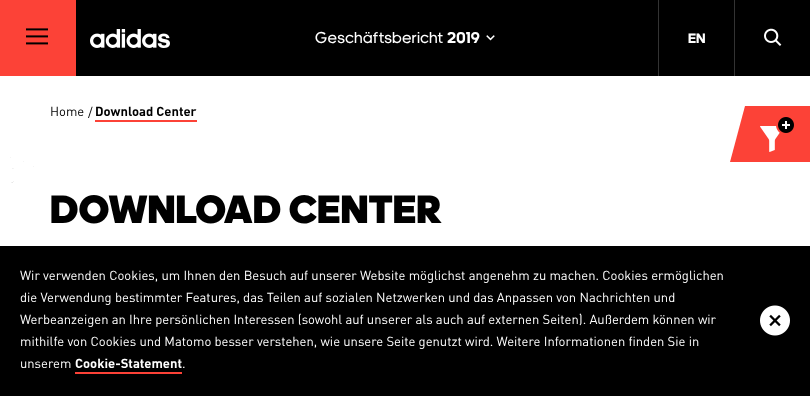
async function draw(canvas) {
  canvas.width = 810
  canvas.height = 396
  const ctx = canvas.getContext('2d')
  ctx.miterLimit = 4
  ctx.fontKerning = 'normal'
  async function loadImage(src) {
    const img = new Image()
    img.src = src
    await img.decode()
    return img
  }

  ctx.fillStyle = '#fff'
  ctx.fillRect(0, 0, 810, 396)
  ctx.fillStyle = '#000'
  ctx.fillRect(76, 0, 734, 76)
  ctx.letterSpacing = '0.5px'
  ctx.font = '16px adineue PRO'
  ctx.fillStyle = '#fff'
  ctx.fillText('Geschäftsbericht', 315, 43)
  ctx.font = 'bold 16px adineue PRO'
  ctx.fillText('2019', 447, 43)
  ctx.drawImage(await loadImage('image0.png'), 486, 35, 9, 6)
  ctx.fillStyle = '#fc4237'
  ctx.fillRect(0, 0, 76, 76)
  ctx.drawImage(await loadImage('image1.png'), 26, 28, 22, 17)
  ctx.drawImage(await loadImage('image2.png'), 90, 29, 80, 19)
  ctx.fillStyle = '#333'
  ctx.fillRect(658, 0, 1, 76)
  ctx.letterSpacing = '0px'
  ctx.font = 'bold 14px adineue PRO'
  ctx.fillStyle = '#fff'
  ctx.fillText('EN', 688, 43)
  ctx.fillStyle = '#333'
  ctx.fillRect(734, 0, 1, 76)
  ctx.drawImage(await loadImage('image3.png'), 764, 28, 18, 18)
  ctx.font = '13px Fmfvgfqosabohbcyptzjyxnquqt'
  ctx.fillStyle = '#000'
  ctx.fillText('Home', 50, 116)
  ctx.fillText('/', 88, 117)
  ctx.fillStyle = '#fc4237'
  ctx.fillRect(95, 120, 102, 2)
  ctx.font = 'bold 13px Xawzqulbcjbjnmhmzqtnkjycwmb'
  ctx.fillStyle = '#000'
  ctx.fillText('Download Center', 95, 116)
  ctx.font = '900 40px adineue PRO'
  ctx.fillText('DOWNLOAD CENTER', 50, 223)
  ctx.fillStyle = '#fc4237'
  ctx.fillRect(745, 106, 65, 56)
  ctx.beginPath()
  ctx.moveTo(745, 162)
  ctx.lineTo(730, 162)
  ctx.lineTo(745, 106)
  ctx.closePath()
  ctx.fill()
  ctx.drawImage(await loadImage('image4.png'), 760, 117, 34, 35)
  ctx.drawImage(await loadImage('image5.png'), 10, 157, 24, 26)
  ctx.fillStyle = '#000'
  ctx.fillRect(0, 246, 810, 150)
  ctx.font = '13px Fmfvgfqosabohbcyptzjyxnquqt'
  ctx.fillStyle = '#fff'
  ctx.fillText('Wir verwenden Cookies, um Ihnen den Besuch auf unserer Website möglichst angenehm zu machen. Cookies ermöglichen', 20, 280)
  ctx.fillText('die Verwendung bestimmter Features, das Teilen auf sozialen Netzwerken und das Anpassen von Nachrichten und', 20, 302)
  ctx.fillText('Werbeanzeigen an Ihre persönlichen Interessen (sowohl auf unserer als auch auf externen Seiten). Außerdem können wir', 20, 324)
  ctx.fillText('mithilfe von Cookies und Matomo besser verstehen, wie unsere Seite genutzt wird. Weitere Informationen finden Sie in', 20, 346)
  ctx.fillText('unserem', 20, 368)
  ctx.font = 'bold 13px Xawzqulbcjbjnmhmzqtnkjycwmb'
  ctx.fillText('Cookie-Statement', 75, 368)
  ctx.fillStyle = '#fc4237'
  ctx.fillRect(75, 372, 107, 2)
  ctx.font = '13px Fmfvgfqosabohbcyptzjyxnquqt'
  ctx.fillStyle = '#fff'
  ctx.fillText('.', 182, 368)
  ctx.drawImage(await loadImage('image6.png'), 760, 305, 30, 31)
}

draw(document.querySelector('canvas'))
